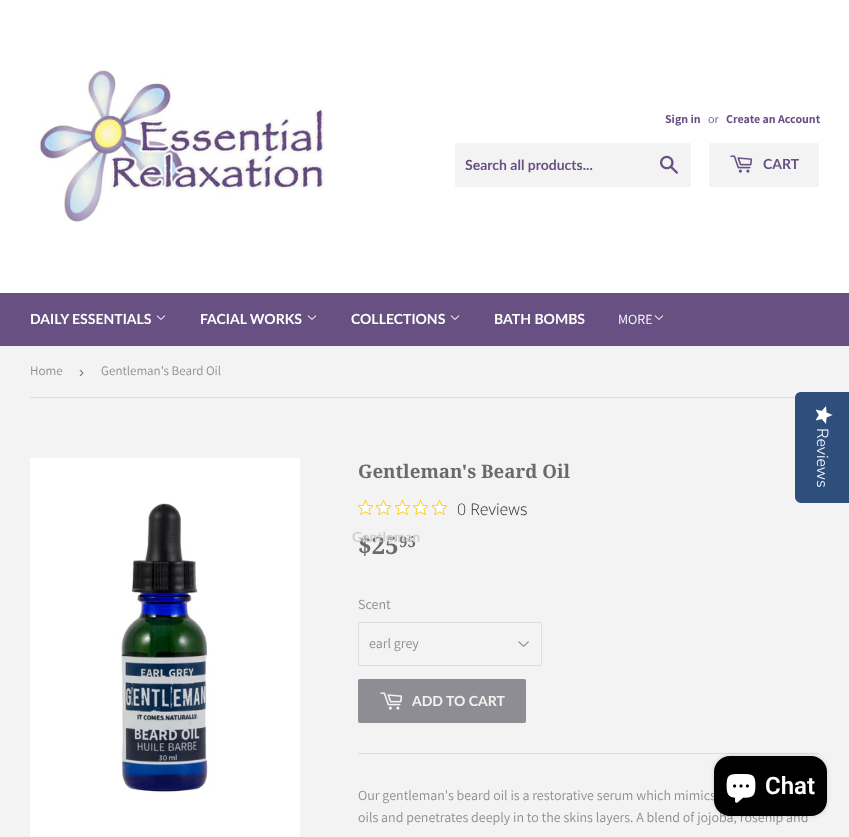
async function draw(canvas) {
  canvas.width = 849
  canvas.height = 837
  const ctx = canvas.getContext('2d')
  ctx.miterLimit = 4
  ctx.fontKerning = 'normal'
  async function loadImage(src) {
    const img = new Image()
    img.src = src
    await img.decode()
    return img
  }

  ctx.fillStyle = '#f3f3f3'
  ctx.fillRect(0, 0, 849, 837)
  ctx.fillStyle = '#fff'
  ctx.fillRect(0, 0, 849, 293)
  ctx.drawImage(await loadImage('image0.png'), 37, 67, 288, 156)
  ctx.font = 'bold 12px Assistant'
  ctx.fillStyle = '#685083'
  ctx.fillText('Sign in', 665, 123)
  ctx.font = '12px Assistant'
  ctx.fillText('or', 708, 123)
  ctx.font = 'bold 12px Assistant'
  ctx.fillText('Create an Account', 726, 123)
  ctx.fillStyle = '#f3f3f3'
  ctx.beginPath()
  ctx.roundRect(455, 143, 236, 44, 2)
  ctx.fill()
  ctx.font = 'bold 14px Lato'
  ctx.fillStyle = '#685083'
  ctx.fillText('Search all products...', 465, 170)
  ctx.drawImage(await loadImage('image1.png'), 660, 155, 18, 19)
  ctx.fillStyle = '#f3f3f3'
  ctx.beginPath()
  ctx.roundRect(709, 143, 110, 44, 2)
  ctx.fill()
  ctx.drawImage(await loadImage('image2.png'), 730, 155, 23, 18)
  ctx.fillStyle = '#685083'
  ctx.fillText('CART', 763, 169)
  ctx.fillRect(0, 293, 849, 53)
  ctx.fillStyle = '#fff'
  ctx.fillText('DAILY ESSENTIALS', 30, 324)
  ctx.drawImage(await loadImage('image3.png'), 156, 315, 10, 5)
  ctx.fillText('FACIAL WORKS', 200, 324)
  ctx.drawImage(await loadImage('image3.png'), 307, 315, 10, 5)
  ctx.fillText('COLLECTIONS', 351, 324)
  ctx.drawImage(await loadImage('image3.png'), 450, 315, 10, 5)
  ctx.font = 'bold 24px Noto Serif'
  ctx.fillStyle = '#686b6d'
  ctx.fillText('$25', 358, 554)
  ctx.font = 'bold 15px Noto Serif'
  ctx.fillText('95', 399, 547)
  ctx.font = 'bold 14px Lato'
  ctx.fillStyle = '#cfd0d0'
  ctx.fillText('Gentleman', 352, 542)
  ctx.fillStyle = '#fff'
  ctx.fillText('BATH BOMBS', 494, 324)
  ctx.font = '14px Assistant'
  ctx.fillText('MORE', 618, 324)
  ctx.drawImage(await loadImage('image3.png'), 654, 315, 10, 5)
  ctx.fillStyle = '#dedede'
  ctx.fillRect(30, 397, 766, 1)
  ctx.font = '13px Assistant'
  ctx.fillStyle = '#8e8d93'
  ctx.fillText('Home', 30, 375)
  ctx.font = '15px Liberation Sans'
  ctx.fillStyle = '#767676'
  ctx.fillText('›', 79, 377)
  ctx.font = '13px Assistant'
  ctx.fillStyle = '#8e8d93'
  ctx.fillText('Gentleman\'s Beard Oil', 101, 375)
  ctx.drawImage(await loadImage('image4.png'), 30, 458, 270, 379)
  ctx.font = 'bold 18.7px Noto Serif'
  ctx.fillStyle = '#686b6d'
  ctx.fillText('Gentleman\'s Beard Oil', 358, 478)
  ctx.drawImage(await loadImage('image5.png'), 358, 500, 15, 15)
  ctx.drawImage(await loadImage('image5.png'), 376, 500, 15, 15)
  ctx.drawImage(await loadImage('image5.png'), 395, 500, 15, 15)
  ctx.drawImage(await loadImage('image5.png'), 413, 500, 15, 15)
  ctx.drawImage(await loadImage('image5.png'), 432, 500, 15, 15)
  ctx.font = '300 16px Open Sans'
  ctx.fillStyle = '#2c2c2c'
  ctx.fillText('0 Reviews', 457, 515)
  ctx.font = '14px Assistant'
  ctx.fillStyle = '#8e8d93'
  ctx.fillText('Scent', 358, 609)
  ctx.drawImage(await loadImage('image6.png'), 518, 641, 11, 6)
  ctx.beginPath()
  ctx.roundRect(358.5, 622.5, 183, 43, 1.5)
  ctx.strokeStyle = '#dedede'
  ctx.stroke()
  ctx.fillText('earl grey', 369, 648)
  ctx.beginPath()
  ctx.roundRect(358, 679, 168, 44, 2)
  ctx.fill()
  ctx.drawImage(await loadImage('image7.png'), 380, 692, 23, 18)
  ctx.font = 'bold 14px Lato'
  ctx.fillStyle = '#f3f3f3'
  ctx.fillText('ADD TO CART', 412, 706)
  ctx.fillStyle = '#dedede'
  ctx.fillRect(358, 753, 461, 1)
  ctx.font = '14px Assistant'
  ctx.fillStyle = '#8e8d93'
  ctx.fillText('Our gentleman\'s beard oil is a restorative serum which mimics', 358, 800)
  ctx.fillText('oils and penetrates deeply in to the skins layers. A blend of jojoba, rosehip and', 358, 822)
  ctx.fillStyle = '#2e4f7c'
  ctx.beginPath()
  ctx.moveTo(849, 392)
  ctx.lineTo(849, 503)
  ctx.lineTo(801, 503)
  ctx.bezierCurveTo(798, 503, 795, 500, 795, 497)
  ctx.lineTo(795, 398)
  ctx.bezierCurveTo(795, 394, 798, 392, 801, 392)
  ctx.closePath()
  ctx.fill()
  ctx.drawImage(await loadImage('image8.png'), 815, 406, 18, 18)
  ctx.font = '300 16px Nunito Sans'
  ctx.fillStyle = '#fff'
  ctx.save()
  ctx.translate(817, 428)
  ctx.rotate(90 * Math.PI / 180)
  ctx.fillText('Reviews', 0, 0)
  ctx.restore()
  ctx.fillStyle = '#00000026'
  ctx.filter = 'blur(2.5px)'
  ctx.beginPath()
  ctx.roundRect(714, 756, 113, 60, 16)
  ctx.fill()
  ctx.filter = 'none'
  ctx.fillStyle = '#000'
  ctx.beginPath()
  ctx.roundRect(714, 756, 113, 60, 16)
  ctx.fill()
  ctx.drawImage(await loadImage('image9.png'), 726, 774, 30, 29)
  ctx.font = '600 24px Roboto'
  ctx.fillStyle = '#fff'
  ctx.fillText('Chat', 765, 794)
}

draw(document.querySelector('canvas'))
